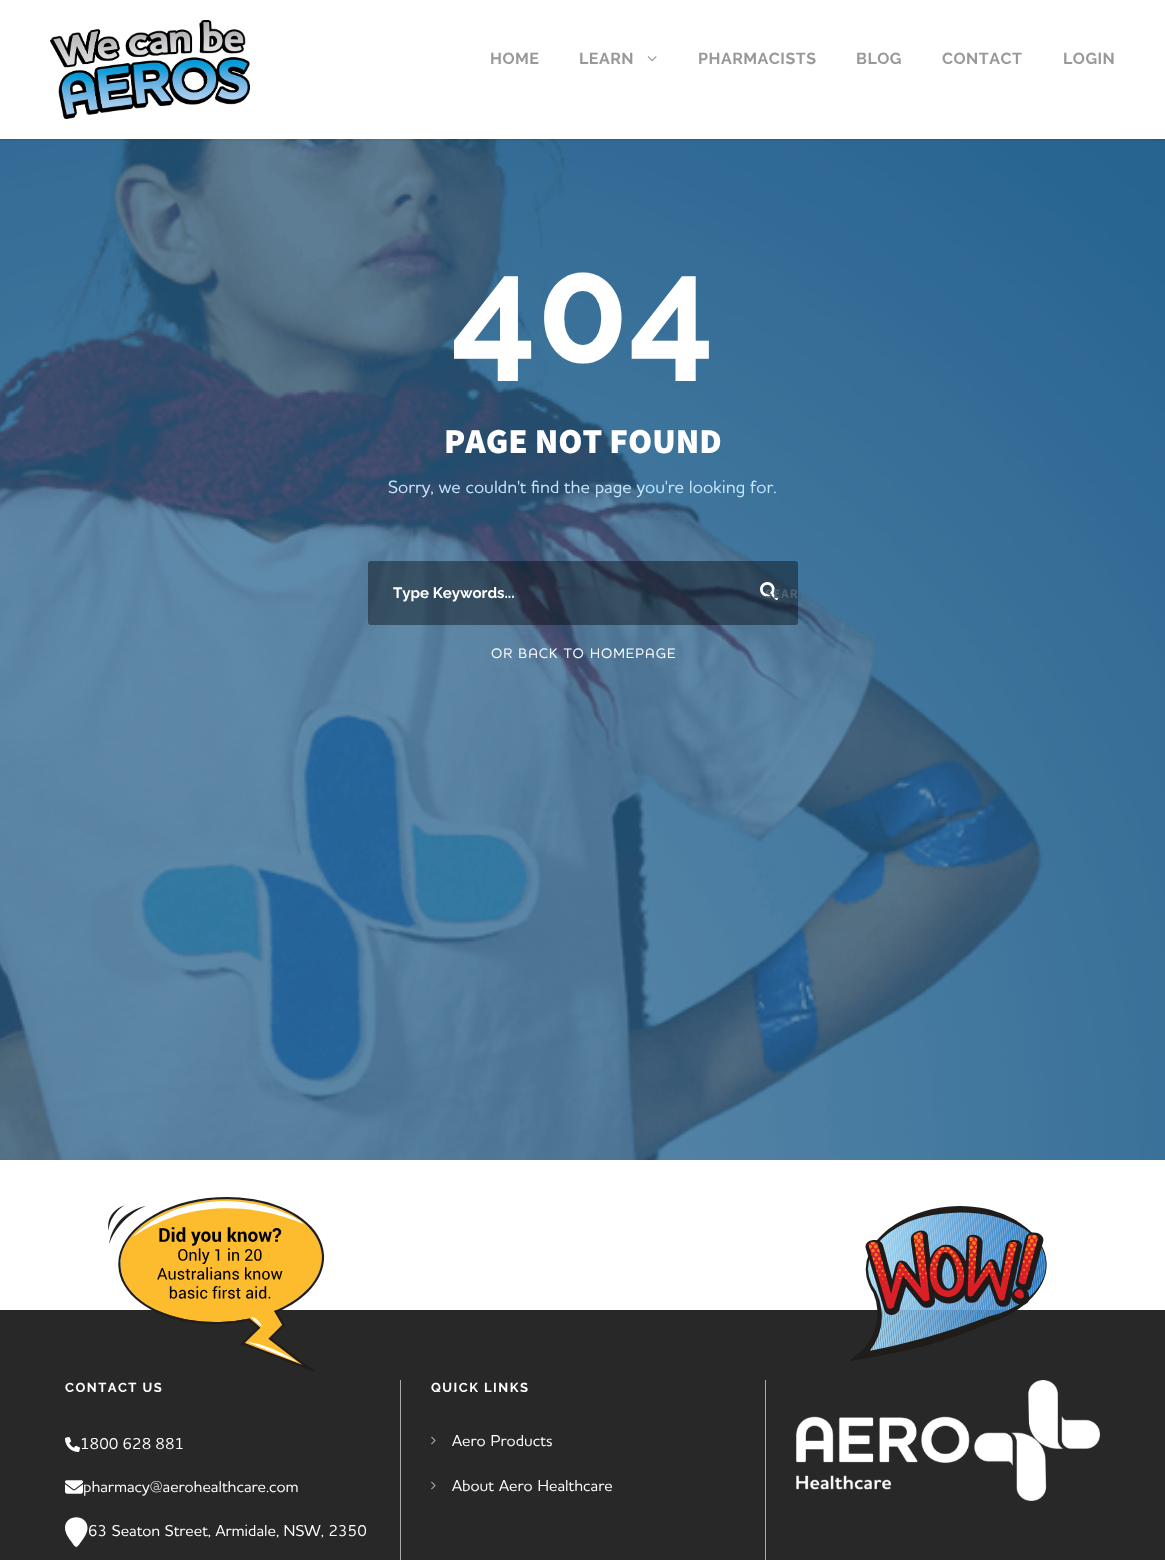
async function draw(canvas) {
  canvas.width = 1165
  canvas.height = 1560
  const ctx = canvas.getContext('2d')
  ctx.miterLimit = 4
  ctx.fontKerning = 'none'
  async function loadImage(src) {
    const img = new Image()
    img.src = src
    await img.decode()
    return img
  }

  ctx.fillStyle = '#fff'
  ctx.fillRect(0, 0, 1165, 1560)
  ctx.fillStyle = '#23618e'
  ctx.fillRect(0, 139, 1165, 1021)
  ctx.drawImage(await loadImage('image2.png'), 0, 139, 1165, 1021)
  ctx.fillStyle = '#0000001a'
  ctx.filter = 'blur(1px)'
  ctx.beginPath()
  ctx.rect(0, 1, 1165, 139)
  ctx.fill()
  ctx.filter = 'none'
  ctx.fillStyle = '#fff'
  ctx.fillRect(0, 0, 1165, 139)
  ctx.drawImage(await loadImage('image0.png'), 50, 20, 200, 99)
  ctx.letterSpacing = '0.5px'
  ctx.font = 'bold 16px Raleway'
  ctx.fillStyle = '#999'
  ctx.fillText('HOME', 490, 64)
  ctx.fillText('LEARN', 579, 64)
  ctx.drawImage(await loadImage('image1.png'), 647, 56, 10, 6)
  ctx.fillText('PHARMACISTS', 698, 64)
  ctx.fillText('BLOG', 856, 64)
  ctx.fillText('CONTACT', 942, 64)
  ctx.fillText('LOGIN', 1063, 64)
  ctx.letterSpacing = '0px'
  ctx.font = 'bold 150px Raleway'
  ctx.fillStyle = '#fff'
  ctx.fillText('404', 451, 362)
  ctx.font = '900 35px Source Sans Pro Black'
  ctx.fillText('PAGE NOT FOUND', 444, 453)
  ctx.wordSpacing = '0.25px'
  ctx.font = '500 18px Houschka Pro'
  ctx.fillStyle = '#c3e7ff'
  ctx.fillText('Sorry, we couldn\'t find the page you\'re looking for.', 388, 493)
  ctx.fillStyle = '#00000066'
  ctx.beginPath()
  ctx.roundRect(368, 561, 430, 64, 3)
  ctx.fill()
  ctx.wordSpacing = '0px'
  ctx.font = 'bold 15px Raleway'
  ctx.fillStyle = '#fff'
  ctx.fillText('Type Keywords...', 393, 598)
  ctx.drawImage(await loadImage('image3.png'), 760, 582, 18, 18)
  ctx.letterSpacing = '1px'
  ctx.font = 'bold 13px Source Sans Pro'
  ctx.fillStyle = '#4d6272'
  ctx.fillText('SEAR', 765, 598)
  ctx.wordSpacing = '0.5px'
  ctx.font = '500 14px Houschka Pro'
  ctx.fillStyle = '#fff'
  ctx.fillText('OR BACK TO HOMEPAGE', 491, 658)
  ctx.fillStyle = '#282828'
  ctx.fillRect(0, 1310, 1165, 250)
  ctx.drawImage(await loadImage('image4.png'), 108, 1197, 217, 175)
  ctx.drawImage(await loadImage('image5.png'), 850, 1206, 197, 155)
  ctx.letterSpacing = '1.5px'
  ctx.wordSpacing = '0px'
  ctx.font = 'bold 13px Raleway'
  ctx.fillStyle = '#fff'
  ctx.fillText('CONTACT US', 65, 1392)
  ctx.drawImage(await loadImage('image6.png'), 65, 1437, 15, 15)
  ctx.letterSpacing = '0px'
  ctx.font = '500 16px Houschka Pro'
  ctx.fillText('1800 628 881', 80, 1449)
  ctx.drawImage(await loadImage('image7.png'), 65, 1480, 18, 14)
  ctx.fillText('pharmacy@aerohealthcare.com', 83, 1492)
  ctx.beginPath()
  ctx.moveTo(87.5, 1528)
  ctx.bezierCurveTo(87.5, 1532.5, 84.5, 1537, 82, 1540.5)
  ctx.bezierCurveTo(76, 1549, 76.5, 1549, 70.5, 1540.5)
  ctx.bezierCurveTo(68, 1537, 65, 1532.5, 65, 1528)
  ctx.bezierCurveTo(65, 1513.5, 87.5, 1513.5, 87.5, 1528)
  ctx.closePath()
  ctx.fill()
  ctx.wordSpacing = '0.5px'
  ctx.fillText('63 Seaton Street, Armidale, NSW, 2350', 88, 1536)
  ctx.fillStyle = '#ababab'
  ctx.fillRect(400, 1380, 1, 180)
  ctx.letterSpacing = '1.5px'
  ctx.wordSpacing = '0px'
  ctx.font = 'bold 13px Raleway'
  ctx.fillStyle = '#fff'
  ctx.fillText('QUICK LINKS', 431, 1392)
  ctx.drawImage(await loadImage('image8.png'), 431, 1436, 5, 9)
  ctx.letterSpacing = '0px'
  ctx.wordSpacing = '1px'
  ctx.font = '500 16px Houschka Pro'
  ctx.fillText('Aero Products', 452, 1446)
  ctx.drawImage(await loadImage('image8.png'), 431, 1481, 5, 9)
  ctx.fillText('About Aero Healthcare', 452, 1491)
  ctx.fillStyle = '#ababab'
  ctx.fillRect(765, 1380, 1, 180)
  ctx.drawImage(await loadImage('image9.png'), 796, 1380, 304, 121)
}

draw(document.querySelector('canvas'))
